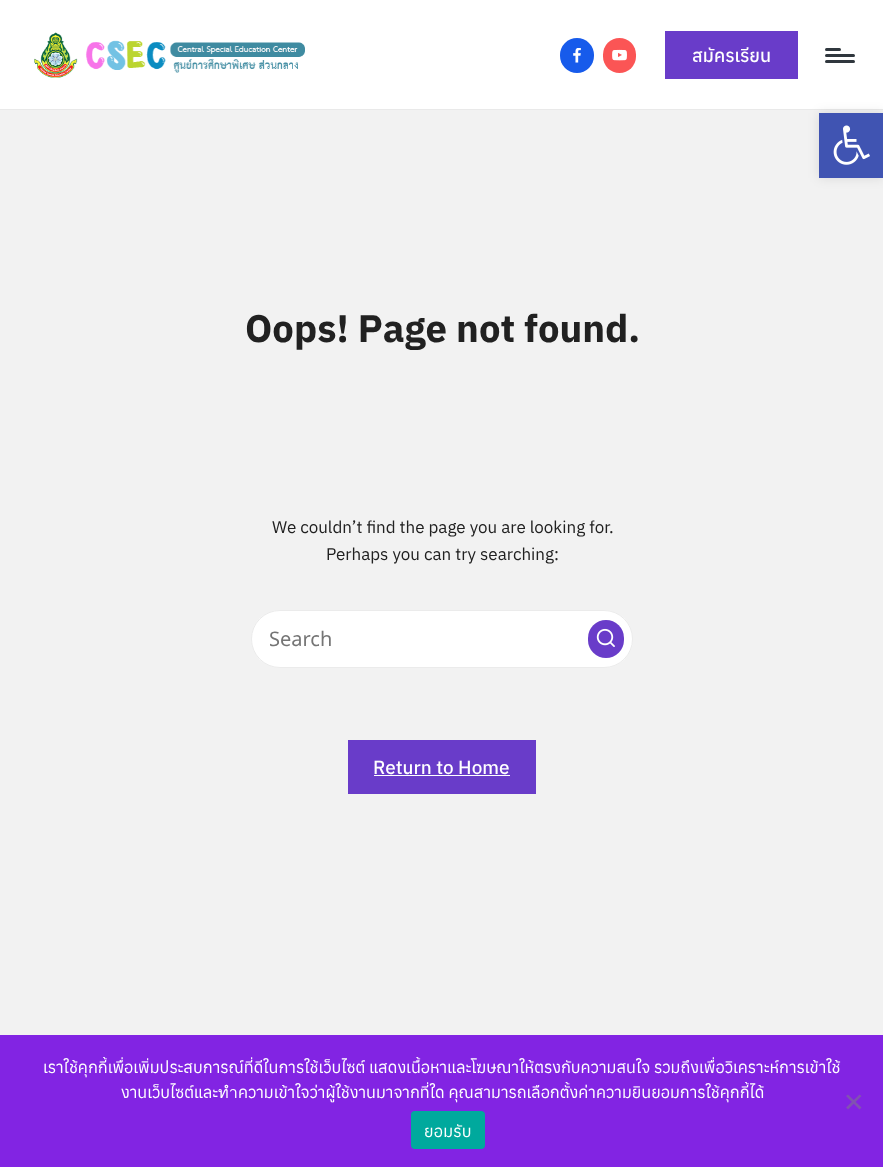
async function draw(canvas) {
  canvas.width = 883
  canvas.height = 1167
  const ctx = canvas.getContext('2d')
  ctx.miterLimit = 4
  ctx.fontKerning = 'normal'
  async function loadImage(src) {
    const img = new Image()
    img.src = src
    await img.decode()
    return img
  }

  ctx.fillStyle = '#f2f2f2'
  ctx.fillRect(0, 0, 883, 1167)
  ctx.fillStyle = '#fff'
  ctx.fillRect(0, 0, 883, 109)
  ctx.fillStyle = '#e9e9e9'
  ctx.fillRect(0, 109, 883, 1)
  ctx.drawImage(await loadImage('image0.png'), 34, 32, 271, 46)
  ctx.fillStyle = '#175beb'
  ctx.beginPath()
  ctx.roundRect(560, 38, 34, 35, 17)
  ctx.fill()
  ctx.drawImage(await loadImage('image1.png'), 573, 48, 8, 15)
  ctx.fillStyle = '#fb5555'
  ctx.beginPath()
  ctx.roundRect(603, 38, 33, 35, 16.5)
  ctx.fill()
  ctx.drawImage(await loadImage('image2.png'), 612, 49, 15, 12)
  ctx.fillStyle = '#693cc9'
  ctx.fillRect(665, 31, 133, 48)
  ctx.font = '500 18px Anuphan'
  ctx.fillStyle = '#fff'
  ctx.fillText('สมัครเรียน', 692, 62)
  ctx.fillStyle = '#30373e'
  ctx.beginPath()
  ctx.roundRect(825, 54, 30, 3, 1.5)
  ctx.fill()
  ctx.beginPath()
  ctx.roundRect(825, 48, 16, 3, 1.5)
  ctx.fill()
  ctx.beginPath()
  ctx.roundRect(825, 60, 30, 3, 1.5)
  ctx.fill()
  ctx.font = 'bold 38.25px anuphan'
  ctx.fillStyle = '#212121'
  ctx.fillText('Oops! Page not found.', 245, 342)
  ctx.font = '17px anuphan'
  ctx.fillText('We couldn’t find the page you are looking for.', 272, 533)
  ctx.fillText('Perhaps you can try searching:', 326, 560)
  ctx.fillStyle = '#fff'
  ctx.beginPath()
  ctx.roundRect(251, 610, 382, 58, 29)
  ctx.fill()
  ctx.beginPath()
  ctx.roundRect(251.5, 610.5, 381, 57, 28.5)
  ctx.strokeStyle = '#bebebe4d'
  ctx.stroke()
  ctx.font = '20px Noto Sans'
  ctx.fillStyle = '#757575'
  ctx.fillText('Search', 269, 646)
  ctx.fillStyle = '#693cc9'
  ctx.beginPath()
  ctx.roundRect(588, 620, 36, 38, 18)
  ctx.fill()
  ctx.drawImage(await loadImage('image3.png'), 596, 628, 19, 19)
  ctx.fillRect(348, 740, 188, 54)
  ctx.font = '500 19px Anuphan'
  ctx.fillStyle = '#fff'
  ctx.fillText('Return to Home', 373, 774)
  ctx.fillRect(374, 775, 136, 1)
  ctx.fillStyle = '#0000001a'
  ctx.filter = 'blur(6px)'
  ctx.beginPath()
  ctx.rect(819, 113, 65, 65)
  ctx.fill()
  ctx.filter = 'none'
  ctx.fillStyle = '#4054b2'
  ctx.fillRect(819, 113, 64, 65)
  ctx.drawImage(await loadImage('image4.png'), 833, 125, 37, 40)
  ctx.fillStyle = '#8224e3'
  ctx.fillRect(0, 1035, 883, 132)
  ctx.font = '16.25px anuphan'
  ctx.fillStyle = '#fff'
  ctx.fillText('เราใช้คุกกี้เพื่อเพิ่มประสบการณ์ที่ดีในการใช้เว็บไซต์ แสดงเนื้อหาและโฆษณาให้ตรงกับความสนใจ รวมถึงเพื่อวิเคราะห์การเข้าใช้', 43, 1073)
  ctx.fillText('งานเว็บไซต์และทำความเข้าใจว่าผู้ใช้งานมาจากที่ใด คุณสามารถเลือกตั้งค่าความยินยอมการใช้คุกกี้ได้', 121, 1098)
  ctx.fillStyle = '#8152b2'
  ctx.beginPath()
  ctx.moveTo(859.5, 1094.5)
  ctx.lineTo(861.5, 1096)
  ctx.lineTo(848, 1109.5)
  ctx.lineTo(846, 1107.5)
  ctx.closePath()
  ctx.fill()
  ctx.beginPath()
  ctx.moveTo(846, 1096)
  ctx.lineTo(848, 1094.5)
  ctx.lineTo(861.5, 1107.5)
  ctx.lineTo(859.5, 1109.5)
  ctx.closePath()
  ctx.fill()
  ctx.fillStyle = '#00a99d'
  ctx.beginPath()
  ctx.roundRect(411, 1111, 74, 38, 4)
  ctx.fill()
  ctx.letterSpacing = '0.25px'
  ctx.fillStyle = '#fff'
  ctx.fillText('ยอมรับ', 424, 1137)
}

draw(document.querySelector('canvas'))
